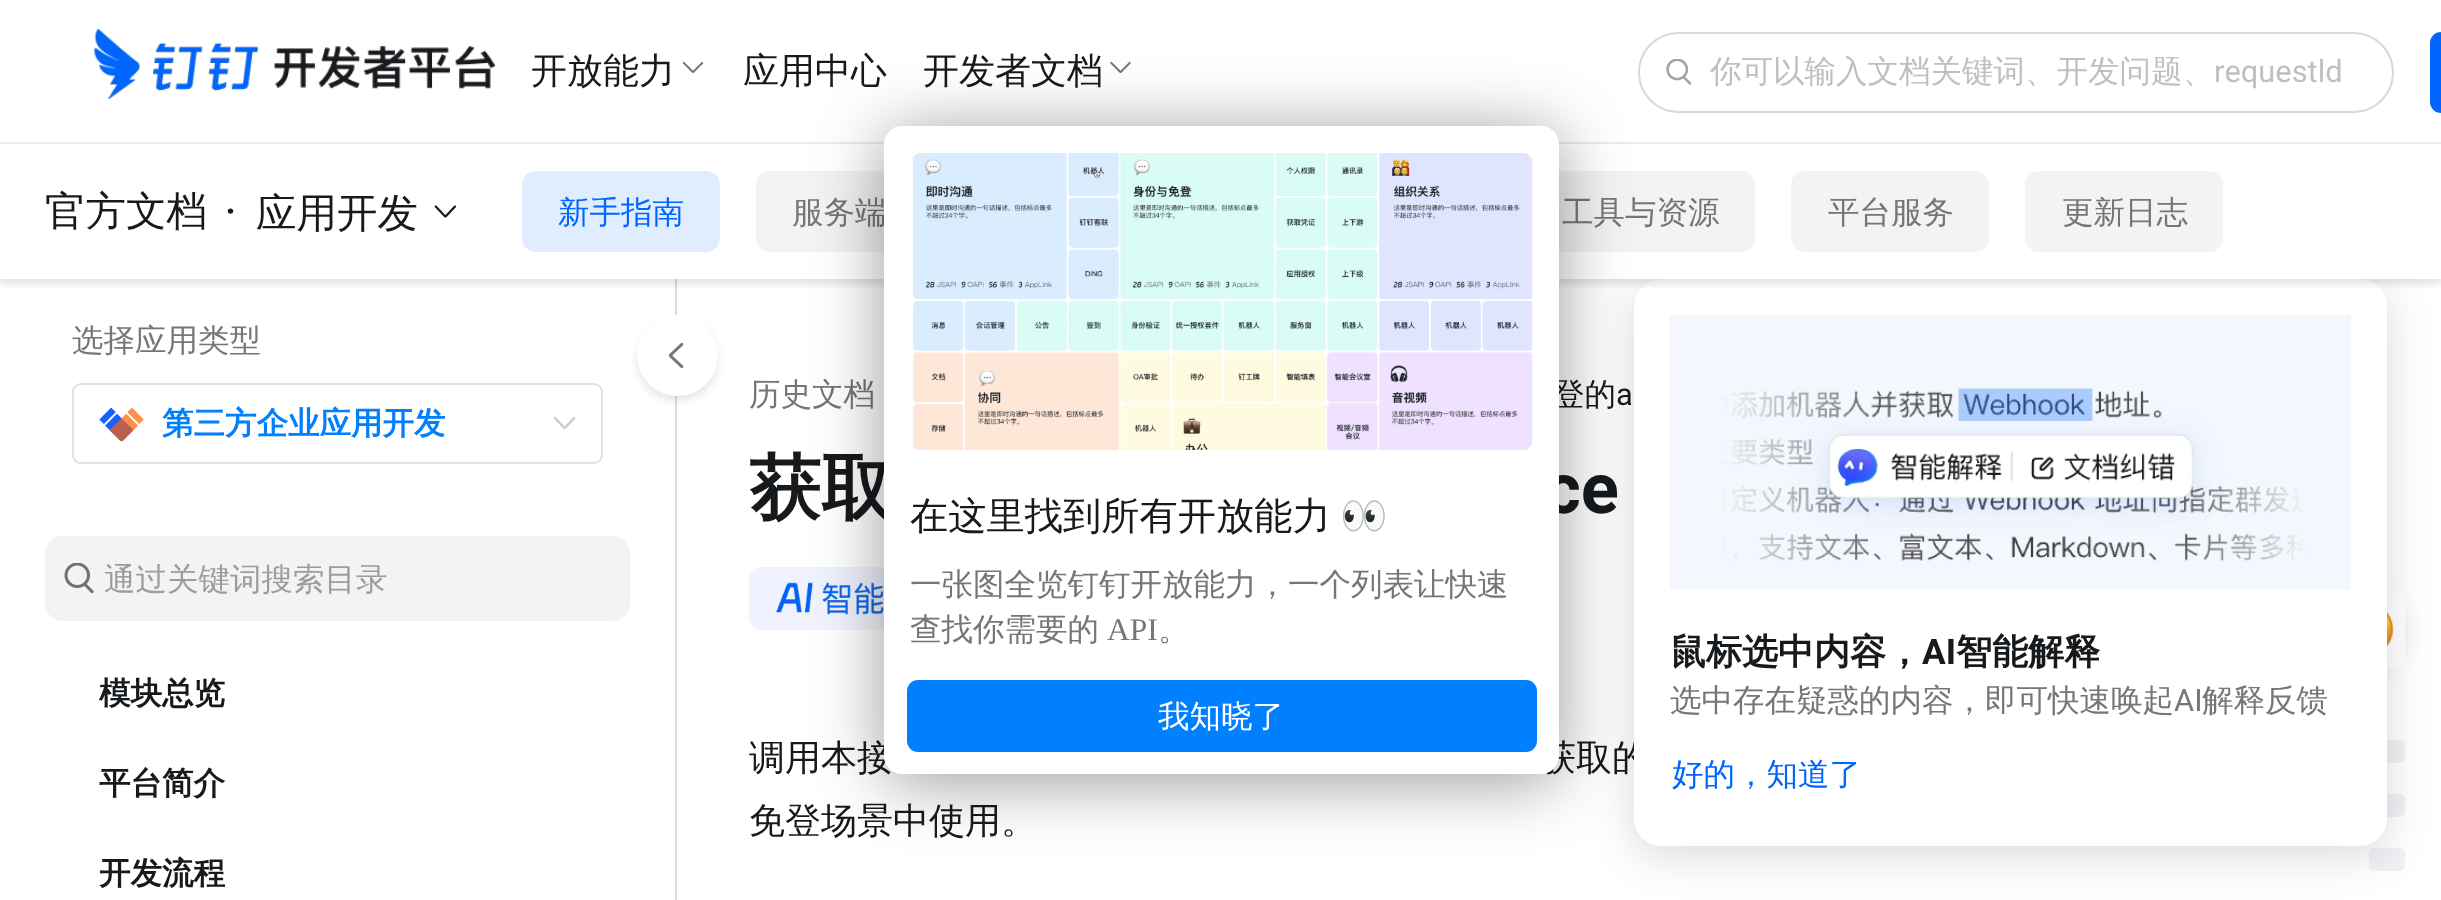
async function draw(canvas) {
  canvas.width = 2441
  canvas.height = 900
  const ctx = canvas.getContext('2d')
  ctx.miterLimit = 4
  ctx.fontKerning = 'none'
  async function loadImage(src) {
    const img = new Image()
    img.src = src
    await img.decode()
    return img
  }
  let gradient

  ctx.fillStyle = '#fff'
  ctx.fillRect(0, 0, 2441, 900)
  ctx.fillStyle = '#f6f6f6'
  ctx.fillRect(675, 279, 2, 621)
  ctx.font = '500 36px WenQuanYi Zen Hei'
  ctx.fillStyle = '#171a1d'
  ctx.fillText('获取的', 1540, 770)
  ctx.fillStyle = '#0000001a'
  ctx.filter = 'blur(11px)'
  ctx.beginPath()
  ctx.roundRect(2315, 592, 90, 81, 40.5)
  ctx.fill()
  ctx.filter = 'none'
  ctx.fillStyle = '#f2f2f6'
  ctx.beginPath()
  ctx.roundRect(2369, 740, 36, 23, 5)
  ctx.fill()
  ctx.beginPath()
  ctx.roundRect(2369, 794, 36, 23, 5)
  ctx.fill()
  ctx.fillStyle = '#fff'
  ctx.fillRect(2387, 587, 18, 81)
  ctx.drawImage(await loadImage('image10.png'), 2387, 611, 7, 36)
  ctx.fillStyle = '#f2f2f6'
  ctx.beginPath()
  ctx.roundRect(2369, 848, 36, 23, 5)
  ctx.fill()
  ctx.save()
  ctx.beginPath()
  ctx.rect(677, 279, 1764, 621)
  ctx.clip()
  ctx.fillStyle = '#00000026'
  ctx.filter = 'blur(22.5px)'
  ctx.beginPath()
  ctx.roundRect(1634, 288, 753, 567, 27)
  ctx.fill()
  ctx.filter = 'none'
  ctx.restore()
  ctx.fillStyle = '#fff'
  ctx.beginPath()
  ctx.roundRect(1634, 279, 753, 567, 27)
  ctx.fill()
  ctx.save()
  ctx.beginPath()
  ctx.rect(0, 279, 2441, 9)
  ctx.clip()
  ctx.fillStyle = '#0000001f'
  ctx.filter = 'blur(4.5px)'
  ctx.beginPath()
  ctx.rect(0, 149, 2441, 135)
  ctx.fill()
  ctx.filter = 'none'
  ctx.restore()
  ctx.fillStyle = '#eaebec'
  ctx.fillRect(0, 142, 2441, 2)
  ctx.drawImage(await loadImage('image0.png'), 94, 29, 402, 70)
  ctx.fillStyle = '#171a1d'
  ctx.fillText('开放能力', 531, 83)
  ctx.drawImage(await loadImage('image1.png'), 682, 61, 22, 13)
  ctx.fillText('应用中心', 743, 83)
  ctx.fillText('开发者文档', 923, 83)
  ctx.drawImage(await loadImage('image2.png'), 1110, 61, 21, 13)
  ctx.beginPath()
  ctx.roundRect(1639, 33, 754, 79, 39.5)
  ctx.strokeStyle = '#d9d9d9'
  ctx.lineWidth = 2
  ctx.stroke()
  ctx.drawImage(await loadImage('image3.png'), 1666, 59, 26, 26)
  ctx.font = '500 31.5px WenQuanYi Zen Hei'
  ctx.fillStyle = '#bfbfbf'
  ctx.fillText('你可以输入文档关键词、开发问题、', 1710, 82)
  ctx.font = '31.5px Roboto'
  ctx.fillText('requestld', 2214, 82)
  ctx.fillStyle = '#06f'
  ctx.beginPath()
  ctx.roundRect(2430, 32, 11, 81, [18, 0, 0, 18])
  ctx.fill()
  ctx.font = '500 40.5px WenQuanYi Zen Hei'
  ctx.fillStyle = '#171a1d'
  ctx.fillText('官方文档', 45, 225)
  ctx.font = '500 40.5px Roboto'
  ctx.fillText('·', 225, 225)
  ctx.font = '500 40.5px WenQuanYi Zen Hei'
  ctx.fillText('应用开发', 256, 227)
  ctx.drawImage(await loadImage('image4.png'), 434, 205, 22, 13)
  ctx.fillStyle = '#e0edff'
  ctx.beginPath()
  ctx.roundRect(522, 171, 198, 81, 14)
  ctx.fill()
  ctx.font = '500 31.5px WenQuanYi Zen Hei'
  ctx.fillStyle = '#06f'
  ctx.fillText('新手指南', 558, 223)
  ctx.fillStyle = '#f3f3f5'
  ctx.beginPath()
  ctx.roundRect(756, 171, 214, 81, 14)
  ctx.fill()
  ctx.fillStyle = '#747677'
  ctx.fillText('服务端', 792, 223)
  ctx.fillStyle = '#f3f3f5'
  ctx.beginPath()
  ctx.roundRect(1526, 171, 229, 81, 14)
  ctx.fill()
  ctx.fillStyle = '#747677'
  ctx.fillText('工具与资源', 1562, 223)
  ctx.fillStyle = '#f3f3f5'
  ctx.beginPath()
  ctx.roundRect(1791, 171, 198, 81, 14)
  ctx.fill()
  ctx.fillStyle = '#747677'
  ctx.fillText('平台服务', 1828, 223)
  ctx.fillStyle = '#f3f3f5'
  ctx.beginPath()
  ctx.roundRect(2025, 171, 198, 81, 14)
  ctx.fill()
  ctx.fillStyle = '#747677'
  ctx.fillText('更新日志', 2062, 223)
  ctx.fillText('选择应用类型', 72, 351)
  ctx.beginPath()
  ctx.roundRect(73, 384, 529, 79, 8)
  ctx.strokeStyle = '#e0e2e4'
  ctx.stroke()
  ctx.drawImage(await loadImage('image5.png'), 99, 407, 45, 35)
  ctx.font = 'bold 31.5px WenQuanYi Zen Hei'
  ctx.fillStyle = '#007fff'
  ctx.fillText('第三方企业应用开发', 162, 434)
  ctx.drawImage(await loadImage('image6.png'), 554, 417, 22, 12)
  ctx.fillStyle = '#f2f3f4'
  ctx.beginPath()
  ctx.roundRect(45, 536, 585, 85, 18)
  ctx.fill()
  ctx.drawImage(await loadImage('image7.png'), 64, 563, 30, 31)
  ctx.font = '500 31.5px WenQuanYi Zen Hei'
  ctx.fillStyle = '#9a9c9e'
  ctx.fillText('通过关键词搜索目录', 104, 590)
  ctx.font = 'bold 31.5px WenQuanYi Zen Hei'
  ctx.fillStyle = '#171a1d'
  ctx.fillText('模块总览', 99, 704)
  ctx.fillText('平台简介', 99, 794)
  ctx.fillText('开发流程', 99, 884)
  ctx.fillStyle = '#7e868e3d'
  ctx.fillRect(675, 279, 2, 621)
  ctx.fillStyle = '#0000001a'
  ctx.filter = 'blur(4.5px)'
  ctx.beginPath()
  ctx.roundRect(637, 320, 81, 81, 40.5)
  ctx.fill()
  ctx.filter = 'none'
  ctx.fillStyle = '#fff'
  ctx.beginPath()
  ctx.arc(677.5, 355.5, 40.5, 0, 2 * Math.PI)
  ctx.fill()
  ctx.drawImage(await loadImage('image8.png'), 668, 342, 16, 27)
  ctx.font = '500 31.5px WenQuanYi Zen Hei'
  ctx.fillStyle = '#747677'
  ctx.fillText('历史文档', 749, 405)
  ctx.fillStyle = '#171a1d'
  ctx.fillText('登的', 1553, 405)
  ctx.font = '31.5px Roboto'
  ctx.fillText('a', 1616, 405)
  ctx.font = 'bold 72px WenQuanYi Zen Hei'
  ctx.fillText('获取', 749, 513)
  ctx.font = 'bold 72px Roboto'
  ctx.fillText('ce', 1544, 513)
  gradient = ctx.createLinearGradient(750, 564, 1009, 633)
  gradient.addColorStop(0, '#e9e7ff')
  gradient.addColorStop(1, '#e4ebff')
  ctx.fillStyle = gradient
  ctx.beginPath()
  ctx.roundRect(749, 567, 261, 63, 14)
  ctx.fill()
  gradient = ctx.createRadialGradient(1010, 1019.33, 0, 1010, 1019.33, 144)
  gradient.addColorStop(0, '#e4ebff')
  gradient.addColorStop(1, '#f2f5ff8c')
  ctx.fillStyle = gradient
  ctx.beginPath()
  ctx.roundRect(749, 567, 261, 63, 14)
  ctx.save()
  ctx.clip()
  ctx.scale(1, 89 / 144)
  ctx.fillRect(0, 0, 2441, 1457)
  ctx.restore()
  gradient = ctx.createRadialGradient(927, 2593.26, 0, 927, 2593.26, 177)
  gradient.addColorStop(0, '#f2f7f7')
  gradient.addColorStop(1, '#f2f5ff8c')
  ctx.fillStyle = gradient
  ctx.beginPath()
  ctx.roundRect(749, 567, 261, 63, 14)
  ctx.save()
  ctx.clip()
  ctx.scale(1, 43 / 177)
  ctx.fillRect(0, 0, 2441, 3705)
  ctx.restore()
  ctx.drawImage(await loadImage('image9.png'), 776, 582, 108, 33)
  ctx.font = '500 36px WenQuanYi Zen Hei'
  ctx.fillStyle = '#171a1d'
  ctx.fillText('调用本接', 749, 770)
  ctx.fillText('免登场景中使用。', 749, 833)
  ctx.drawImage(await loadImage('image11.png'), 1669, 315, 682, 275)
  ctx.font = 'bold 36px WenQuanYi Zen Hei'
  ctx.fillText('鼠标选中内容，', 1670, 664)
  ctx.font = 'bold 36px Roboto'
  ctx.fillText('AI', 1922, 664)
  ctx.font = 'bold 36px WenQuanYi Zen Hei'
  ctx.fillText('智能解释', 1956, 664)
  ctx.font = '500 31.5px WenQuanYi Zen Hei'
  ctx.fillStyle = '#747677'
  ctx.fillText('选中存在疑惑的内容，即可快速唤起', 1670, 711)
  ctx.font = '31.5px Roboto'
  ctx.fillText('AI', 2174, 711)
  ctx.font = '500 31.5px WenQuanYi Zen Hei'
  ctx.fillText('解释反馈', 2202, 711)
  ctx.fillStyle = '#06f'
  ctx.fillText('好的，知道了', 1672, 785)
  ctx.fillStyle = '#00000066'
  ctx.filter = 'blur(34px)'
  ctx.beginPath()
  ctx.roundRect(884, 133, 675, 648, 18)
  ctx.fill()
  ctx.filter = 'none'
  ctx.fillStyle = '#fff'
  ctx.beginPath()
  ctx.roundRect(884, 126, 675, 648, 18)
  ctx.fill()
  ctx.drawImage(await loadImage('image12.png'), 911, 153, 622, 297)
  ctx.font = '500 38.25px WenQuanYi Zen Hei'
  ctx.fillStyle = '#171a1d'
  ctx.fillText('在这里找到所有开放能力', 910, 529)
  ctx.font = '38.25px Noto Color Emoji'
  ctx.fillText('👀', 1340, 529)
  ctx.font = '500 31.5px WenQuanYi Zen Hei'
  ctx.fillStyle = '#747677'
  ctx.fillText('一张图全览钉钉开放能力，一个列表让快速', 910, 595)
  ctx.fillText('查找你需要的', 910, 640)
  ctx.font = '31.5px Liberation Serif'
  ctx.fillText('API', 1107, 640)
  ctx.font = '500 31.5px WenQuanYi Zen Hei'
  ctx.fillText('。', 1158, 640)
  ctx.fillStyle = '#007fff'
  ctx.beginPath()
  ctx.roundRect(907, 680, 630, 72, 11)
  ctx.fill()
  ctx.fillStyle = '#fff'
  ctx.fillText('我知晓了', 1158, 727)
}

draw(document.querySelector('canvas'))
